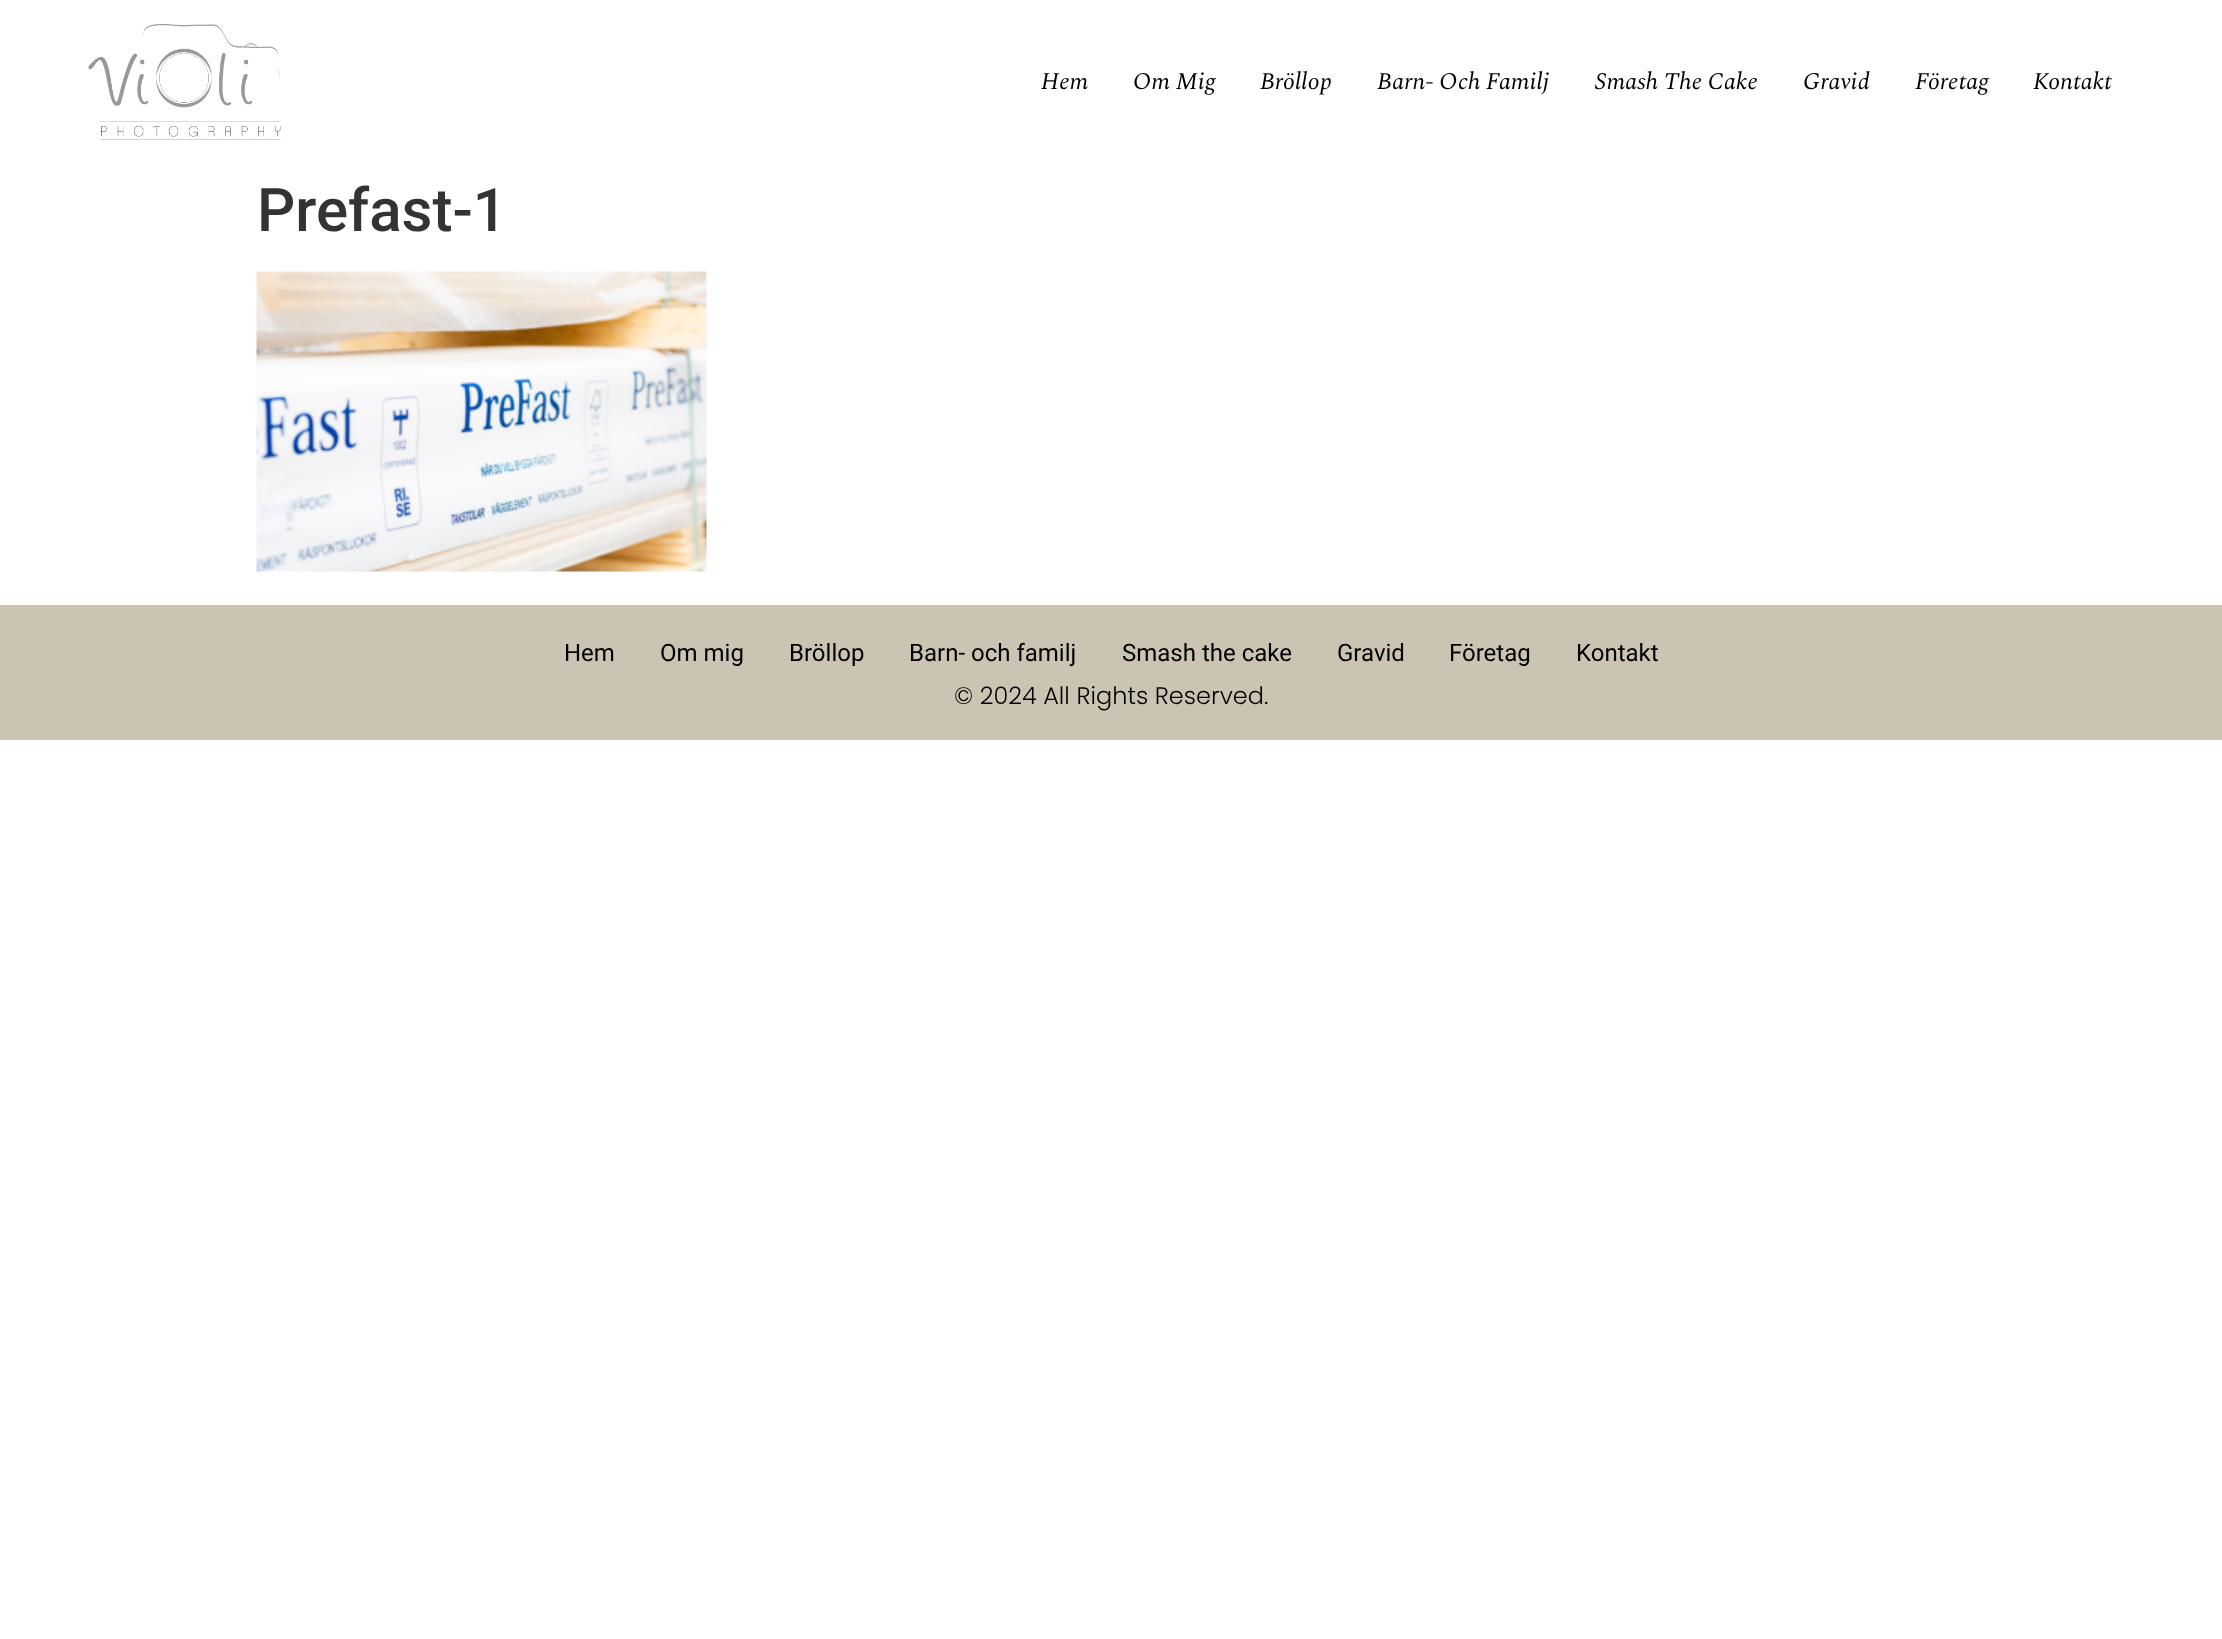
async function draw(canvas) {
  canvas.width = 2222
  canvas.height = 1639
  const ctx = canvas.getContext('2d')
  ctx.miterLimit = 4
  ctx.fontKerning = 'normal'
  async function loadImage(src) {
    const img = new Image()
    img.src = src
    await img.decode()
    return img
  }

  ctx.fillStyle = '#fff'
  ctx.fillRect(0, 0, 2222, 1639)
  ctx.drawImage(await loadImage('image0.png'), 88, 24, 193, 116)
  ctx.font = 'italic 24px Spectral'
  ctx.fillStyle = '#000'
  ctx.fillText('Hem', 1041, 89)
  ctx.fillText('Om Mig', 1133, 89)
  ctx.fillText('Bröllop', 1260, 89)
  ctx.fillText('Barn- Och Familj', 1377, 89)
  ctx.fillText('Smash The Cake', 1595, 89)
  ctx.fillText('Gravid', 1803, 89)
  ctx.fillText('Företag', 1915, 89)
  ctx.fillText('Kontakt', 2033, 89)
  ctx.font = '500 60px Roboto'
  ctx.fillStyle = '#333'
  ctx.fillText('Prefast-1', 257, 231)
  ctx.drawImage(await loadImage('image1.png'), 256, 271, 451, 301)
  ctx.fillStyle = '#cbc4b2'
  ctx.fillRect(0, 605, 2222, 135)
  ctx.font = '24px Roboto'
  ctx.fillStyle = '#000'
  ctx.fillText('Hem', 564, 661)
  ctx.fillText('Om mig', 660, 661)
  ctx.fillText('Bröllop', 789, 661)
  ctx.fillText('Barn- och familj', 909, 661)
  ctx.fillText('Smash the cake', 1122, 661)
  ctx.fillText('Gravid', 1337, 661)
  ctx.fillText('Företag', 1449, 661)
  ctx.fillText('Kontakt', 1576, 661)
  ctx.font = '300 24px Poppins'
  ctx.fillText('© 2024 All Rights Reserved.', 954, 704)
}

draw(document.querySelector('canvas'))
